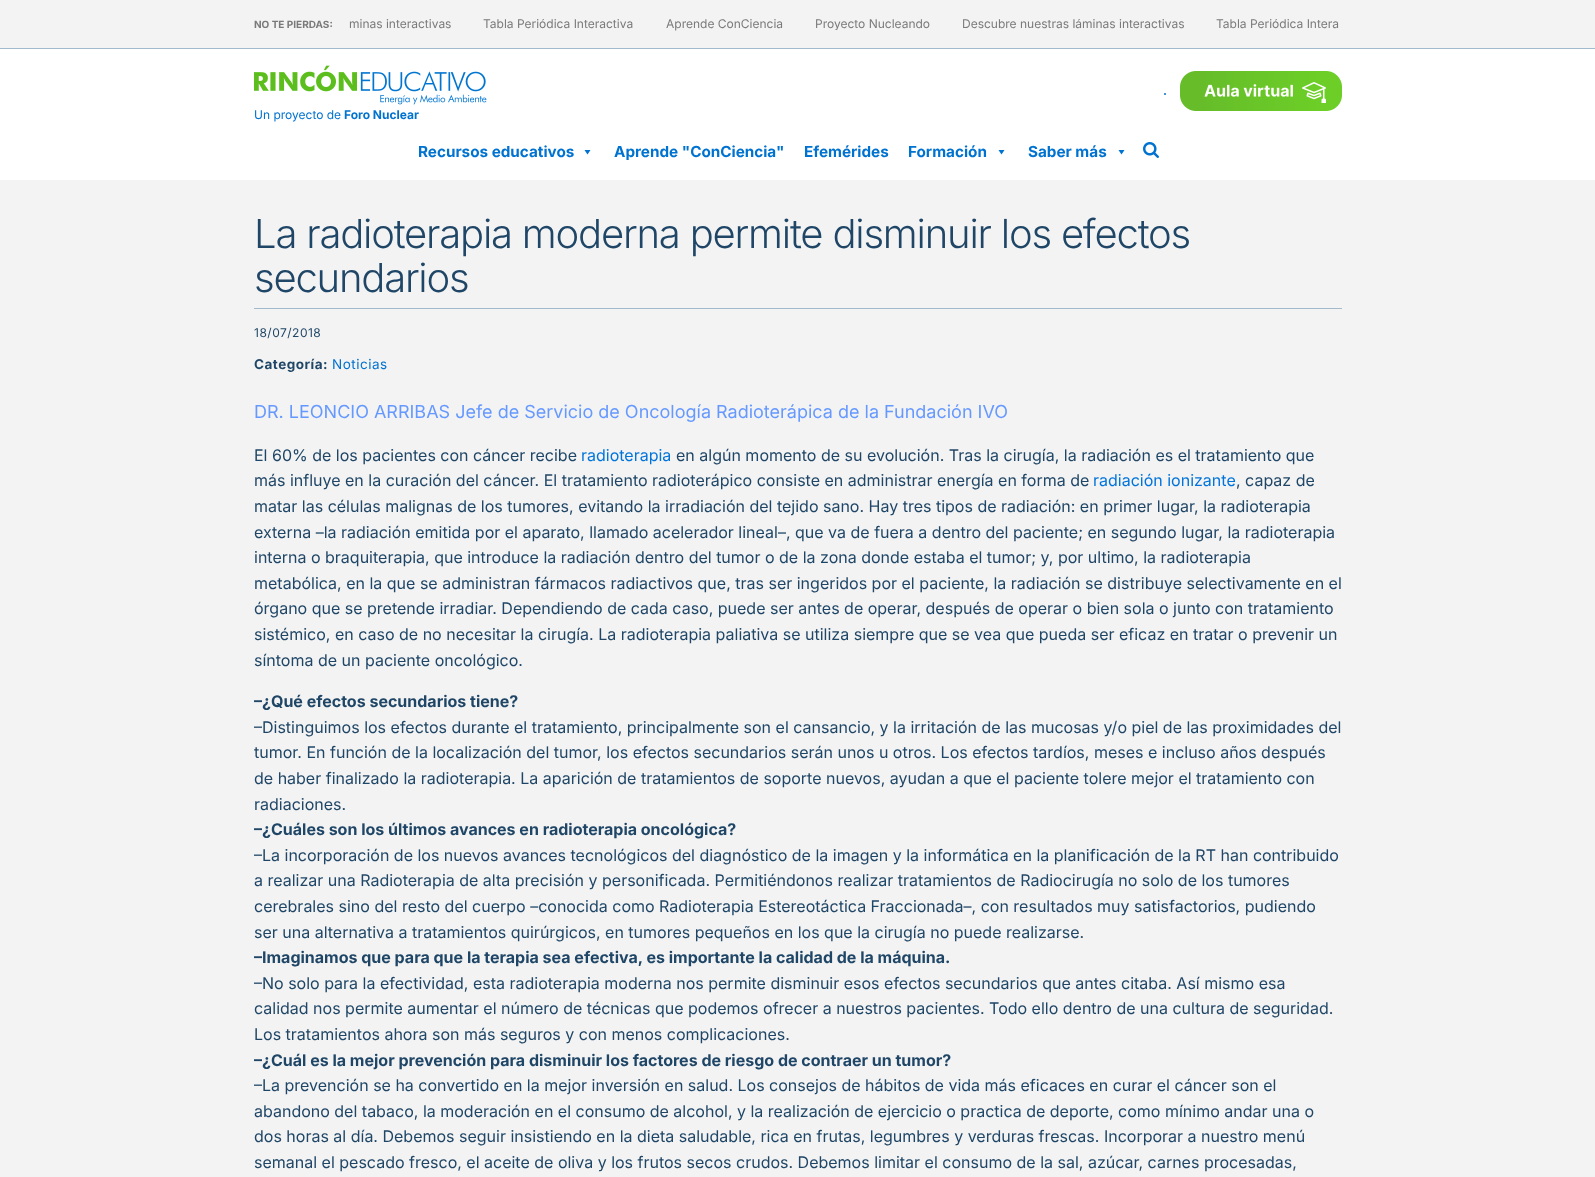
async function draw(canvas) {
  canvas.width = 1595
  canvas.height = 1177
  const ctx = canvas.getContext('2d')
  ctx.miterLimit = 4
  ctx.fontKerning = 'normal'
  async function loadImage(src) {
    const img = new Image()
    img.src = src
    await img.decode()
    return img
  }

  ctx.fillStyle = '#f3f3f3'
  ctx.fillRect(0, 0, 1595, 1177)
  ctx.fillStyle = '#a3bacc'
  ctx.fillRect(0, 48, 1595, 1)
  ctx.font = 'bold 10px Inter'
  ctx.fillStyle = '#7a7a7a'
  ctx.fillText('NO TE PIERDAS:', 254, 28)
  ctx.font = '12px Inter'
  ctx.fillText('minas interactivas', 349, 28)
  ctx.fillText('Tabla Periódica Interactiva', 483, 28)
  ctx.fillText('Aprende ConCiencia', 666, 28)
  ctx.save()
  ctx.beginPath()
  ctx.rect(348, 18, 994, 12)
  ctx.clip()
  ctx.fillText('Proyecto Nucleando', 815, 28)
  ctx.restore()
  ctx.fillText('Descubre nuestras láminas interactivas', 962, 28)
  ctx.fillText('Tabla Periódica Intera', 1216, 28)
  ctx.fillStyle = '#fff'
  ctx.fillRect(0, 49, 1595, 131)
  ctx.fillStyle = '#0072cf'
  ctx.beginPath()
  ctx.arc(1165, 94, 1, 0, 2 * Math.PI)
  ctx.fill()
  ctx.drawImage(await loadImage('image0.png'), 1180, 71, 162, 40)
  ctx.drawImage(await loadImage('image1.png'), 254, 65, 233, 40)
  ctx.fillText('Un proyecto de', 254, 119)
  ctx.font = 'bold 12px Inter'
  ctx.fillText('Foro Nuclear', 344, 119)
  ctx.font = 'bold 15.25px Inter'
  ctx.fillText('Recursos educativos', 418, 157)
  ctx.beginPath()
  ctx.moveTo(590.5, 150)
  ctx.lineTo(587.5, 154.5)
  ctx.lineTo(584.5, 150)
  ctx.closePath()
  ctx.fill()
  ctx.fillText('Aprende "ConCiencia"', 614, 157)
  ctx.fillText('Efemérides', 804, 157)
  ctx.fillText('Formación', 908, 157)
  ctx.beginPath()
  ctx.moveTo(1004.5, 150)
  ctx.lineTo(1001.5, 154.5)
  ctx.lineTo(998.5, 150)
  ctx.closePath()
  ctx.fill()
  ctx.fillText('Saber más', 1028, 157)
  ctx.beginPath()
  ctx.moveTo(1124.5, 150)
  ctx.lineTo(1121.5, 154.5)
  ctx.lineTo(1118.5, 150)
  ctx.closePath()
  ctx.fill()
  ctx.drawImage(await loadImage('image2.png'), 1143, 142, 16, 16)
  ctx.fillStyle = '#a3bacc'
  ctx.fillRect(254, 308, 1088, 1)
  ctx.letterSpacing = '-1.2px'
  ctx.font = '300 40px Inter'
  ctx.fillStyle = '#1f4666'
  ctx.fillText('La radioterapia moderna permite disminuir los efectos', 254, 248)
  ctx.fillText('secundarios', 254, 292)
  ctx.letterSpacing = '0.5px'
  ctx.font = '12px Inter'
  ctx.fillText('18/07/2018', 254, 337)
  ctx.font = 'bold 13.5px Inter'
  ctx.fillText('Categoría:', 254, 369)
  ctx.font = '13.5px Inter'
  ctx.fillStyle = '#0072cf'
  ctx.fillText('Noticias', 332, 369)
  ctx.letterSpacing = '0px'
  ctx.font = '18px Inter'
  ctx.fillStyle = '#69f'
  ctx.fillText('DR. LEONCIO ARRIBAS Jefe de Servicio de Oncología Radioterápica de la Fundación IVO', 254, 418)
  ctx.font = '16px Inter'
  ctx.fillStyle = '#1f4666'
  ctx.fillText('El 60% de los pacientes con cáncer recibe', 254, 461)
  ctx.fillStyle = '#0074db'
  ctx.fillText('radioterapia', 581, 461)
  ctx.fillStyle = '#1f4666'
  ctx.fillText('en algún momento de su evolución. Tras la cirugía, la radiación es el tratamiento que', 676, 461)
  ctx.fillText('más influye en la curación del cáncer. El tratamiento radioterápico consiste en administrar energía en forma de', 254, 486)
  ctx.fillStyle = '#0074db'
  ctx.fillText('radiación ionizante', 1093, 486)
  ctx.fillStyle = '#1f4666'
  ctx.fillText(', capaz de', 1236, 486)
  ctx.fillText('matar las células malignas de los tumores, evitando la irradiación del tejido sano. Hay tres tipos de radiación: en primer lugar, la radioterapia', 254, 512)
  ctx.fillText('externa –la radiación emitida por el aparato, llamado acelerador lineal–, que va de fuera a dentro del paciente; en segundo lugar, la radioterapia', 254, 538)
  ctx.fillText('interna o braquiterapia, que introduce la radiación dentro del tumor o de la zona donde estaba el tumor; y, por ultimo, la radioterapia', 254, 563)
  ctx.fillText('metabólica, en la que se administran fármacos radiactivos que, tras ser ingeridos por el paciente, la radiación se distribuye selectivamente en el', 254, 589)
  ctx.fillText('órgano que se pretende irradiar. Dependiendo de cada caso, puede ser antes de operar, después de operar o bien sola o junto con tratamiento', 254, 614)
  ctx.fillText('sistémico, en caso de no necesitar la cirugía. La radioterapia paliativa se utiliza siempre que se vea que pueda ser eficaz en tratar o prevenir un', 254, 640)
  ctx.fillText('síntoma de un paciente oncológico.', 254, 666)
  ctx.font = 'bold 16px Inter'
  ctx.fillText('–¿Qué efectos secundarios tiene?', 254, 707)
  ctx.font = '16px Inter'
  ctx.fillText('–Distinguimos los efectos durante el tratamiento, principalmente son el cansancio, y la irritación de las mucosas y/o piel de las proximidades del', 254, 733)
  ctx.fillText('tumor. En función de la localización del tumor, los efectos secundarios serán unos u otros. Los efectos tardíos, meses e incluso años después', 254, 758)
  ctx.fillText('de haber finalizado la radioterapia. La aparición de tratamientos de soporte nuevos, ayudan a que el paciente tolere mejor el tratamiento con', 254, 784)
  ctx.fillText('radiaciones.', 254, 810)
  ctx.font = 'bold 16px Inter'
  ctx.fillText('–¿Cuáles son los últimos avances en radioterapia oncológica?', 254, 835)
  ctx.font = '16px Inter'
  ctx.fillText('–La incorporación de los nuevos avances tecnológicos del diagnóstico de la imagen y la informática en la planificación de la RT han contribuido', 254, 861)
  ctx.fillText('a realizar una Radioterapia de alta precisión y personificada. Permitiéndonos realizar tratamientos de Radiocirugía no solo de los tumores', 254, 886)
  ctx.fillText('cerebrales sino del resto del cuerpo –conocida como Radioterapia Estereotáctica Fraccionada–, con resultados muy satisfactorios, pudiendo', 254, 912)
  ctx.fillText('ser una alternativa a tratamientos quirúrgicos, en tumores pequeños en los que la cirugía no puede realizarse.', 254, 938)
  ctx.font = 'bold 16px Inter'
  ctx.fillText('–Imaginamos que para que la terapia sea efectiva, es importante la calidad de la máquina.', 254, 963)
  ctx.font = '16px Inter'
  ctx.fillText('–No solo para la efectividad, esta radioterapia moderna nos permite disminuir esos efectos secundarios que antes citaba. Así mismo esa', 254, 989)
  ctx.fillText('calidad nos permite aumentar el número de técnicas que podemos ofrecer a nuestros pacientes. Todo ello dentro de una cultura de seguridad.', 254, 1014)
  ctx.fillText('Los tratamientos ahora son más seguros y con menos complicaciones.', 254, 1040)
  ctx.font = 'bold 16px Inter'
  ctx.fillText('–¿Cuál es la mejor prevención para disminuir los factores de riesgo de contraer un tumor?', 254, 1066)
  ctx.font = '16px Inter'
  ctx.fillText('–La prevención se ha convertido en la mejor inversión en salud. Los consejos de hábitos de vida más eficaces en curar el cáncer son el', 254, 1091)
  ctx.fillText('abandono del tabaco, la moderación en el consumo de alcohol, y la realización de ejercicio o practica de deporte, como mínimo andar una o', 254, 1117)
  ctx.fillText('dos horas al día. Debemos seguir insistiendo en la dieta saludable, rica en frutas, legumbres y verduras frescas. Incorporar a nuestro menú', 254, 1142)
  ctx.fillText('semanal el pescado fresco, el aceite de oliva y los frutos secos crudos. Debemos limitar el consumo de la sal, azúcar, carnes procesadas,', 254, 1168)
}

draw(document.querySelector('canvas'))
